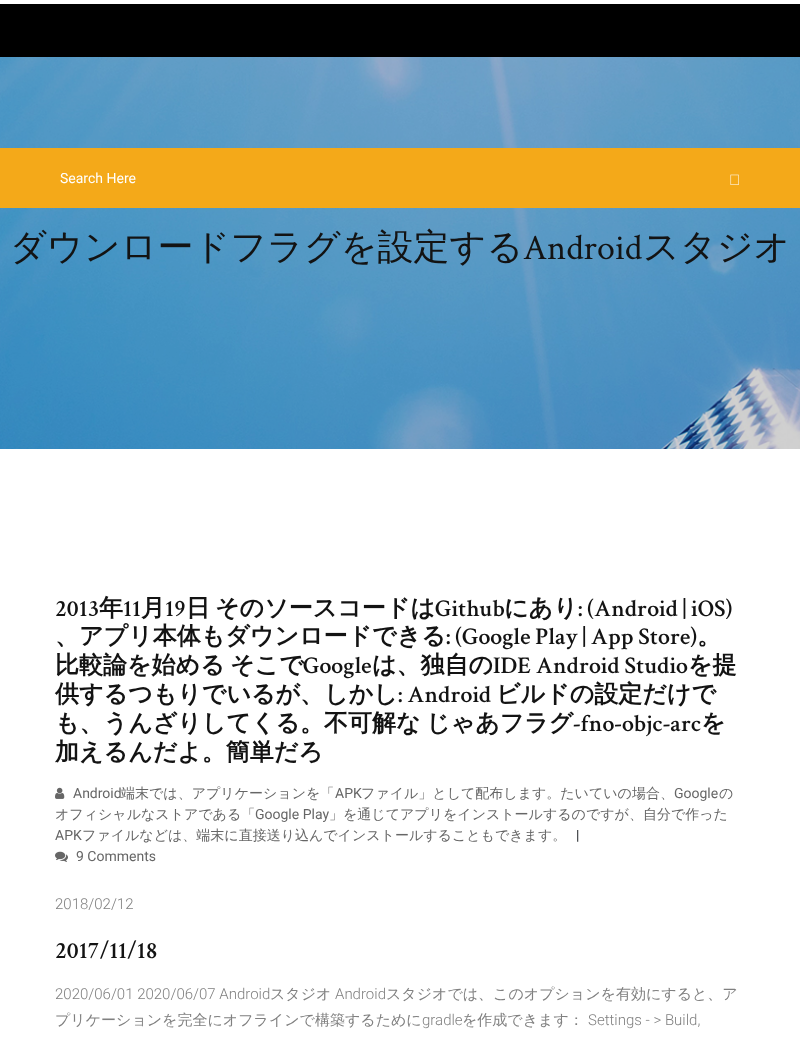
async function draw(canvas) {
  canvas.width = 800
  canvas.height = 1046
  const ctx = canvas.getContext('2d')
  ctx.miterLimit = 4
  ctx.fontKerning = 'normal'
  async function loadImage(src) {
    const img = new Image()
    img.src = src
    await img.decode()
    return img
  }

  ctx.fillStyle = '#fff'
  ctx.fillRect(0, 0, 800, 1046)
  ctx.fillStyle = '#000'
  ctx.fillRect(0, 4, 800, 53)
  ctx.drawImage(await loadImage('image1.png'), 0, 57, 800, 392)
  ctx.fillStyle = '#f4a919'
  ctx.fillRect(0, 148, 800, 60)
  ctx.font = '14px Roboto'
  ctx.fillStyle = '#fff'
  ctx.fillText('Search Here', 60, 183)
  ctx.drawImage(await loadImage('image0.png'), 730, 174, 9, 11)
  ctx.font = '500 36px WenQuanYi Zen Hei'
  ctx.fillStyle = '#131313'
  ctx.fillText('ダウンロードフラグを設定する', 10, 259)
  ctx.font = '36px Crimson Text'
  ctx.fillText('Android', 523, 259)
  ctx.font = '500 36px WenQuanYi Zen Hei'
  ctx.fillText('スタジオ', 643, 259)
  ctx.font = '600 24px Crimson Text'
  ctx.fillText('2013', 55, 616)
  ctx.font = 'bold 24px WenQuanYi Zen Hei'
  ctx.fillText('年', 99, 616)
  ctx.font = '600 24px Crimson Text'
  ctx.fillText('11', 123, 616)
  ctx.font = 'bold 24px WenQuanYi Zen Hei'
  ctx.fillText('月', 141, 616)
  ctx.font = '600 24px Crimson Text'
  ctx.fillText('19', 165, 616)
  ctx.font = 'bold 24px WenQuanYi Zen Hei'
  ctx.fillText('日', 186, 616)
  ctx.fillText('そのソースコードは', 215, 616)
  ctx.font = '600 24px Crimson Text'
  ctx.fillText('Github', 435, 616)
  ctx.font = 'bold 24px WenQuanYi Zen Hei'
  ctx.fillText('にあり', 504, 616)
  ctx.font = '600 24px Crimson Text'
  ctx.fillText(': (Android | iOS)', 578, 616)
  ctx.font = 'bold 24px WenQuanYi Zen Hei'
  ctx.fillText('、アプリ本体もダウンロードできる', 55, 644)
  ctx.font = '600 24px Crimson Text'
  ctx.fillText(': (Google Play | App Store)', 446, 644)
  ctx.font = 'bold 24px WenQuanYi Zen Hei'
  ctx.fillText('。', 697, 644)
  ctx.fillText('比較論を始める', 55, 673)
  ctx.fillText('そこで', 230, 673)
  ctx.font = '600 24px Crimson Text'
  ctx.fillText('Google', 303, 673)
  ctx.font = 'bold 24px WenQuanYi Zen Hei'
  ctx.fillText('は、独自の', 372, 673)
  ctx.font = '600 24px Crimson Text'
  ctx.fillText('IDE Android Studio', 493, 673)
  ctx.font = 'bold 24px WenQuanYi Zen Hei'
  ctx.fillText('を提', 688, 673)
  ctx.fillText('供するつもりでいるが、しかし', 55, 702)
  ctx.font = '600 24px Crimson Text'
  ctx.fillText(': Android', 398, 702)
  ctx.font = 'bold 24px WenQuanYi Zen Hei'
  ctx.fillText('ビルドの設定だけで', 496, 702)
  ctx.fillText('も、うんざりしてくる。不可解な', 55, 731)
  ctx.fillText('じゃあフラグ', 426, 731)
  ctx.font = '600 24px Crimson Text'
  ctx.fillText('-fno-objc-arc', 573, 731)
  ctx.font = 'bold 24px WenQuanYi Zen Hei'
  ctx.fillText('を', 701, 731)
  ctx.fillText('加えるんだよ。簡単だろ', 55, 760)
  ctx.drawImage(await loadImage('image2.png'), 55, 787, 10, 12)
  ctx.font = '14px Roboto'
  ctx.fillStyle = '#666'
  ctx.fillText('Android', 73, 798)
  ctx.font = '500 14px WenQuanYi Zen Hei'
  ctx.fillText('端末では、アプリケーションを「', 121, 798)
  ctx.font = '14px Roboto'
  ctx.fillText('APK', 335, 798)
  ctx.font = '500 14px WenQuanYi Zen Hei'
  ctx.fillText('ファイル」として配布します。たいていの場合、', 361, 798)
  ctx.font = '14px Roboto'
  ctx.fillText('Google', 674, 798)
  ctx.font = '500 14px WenQuanYi Zen Hei'
  ctx.fillText('の', 719, 798)
  ctx.fillText('オフィシャルなストアである「', 55, 819)
  ctx.font = '14px Roboto'
  ctx.fillText('Google Play', 255, 819)
  ctx.font = '500 14px WenQuanYi Zen Hei'
  ctx.fillText('」を通じてアプリをインストールするのですが、自分で作った', 329, 819)
  ctx.font = '14px Roboto'
  ctx.fillText('APK', 55, 840)
  ctx.font = '500 14px WenQuanYi Zen Hei'
  ctx.fillText('ファイルなどは、端末に直接送り込んでインストールすることもできます。', 82, 840)
  ctx.font = '14px Roboto'
  ctx.fillStyle = '#212529'
  ctx.fillText('|', 576, 840)
  ctx.drawImage(await loadImage('image3.png'), 55, 851, 13, 11)
  ctx.fillStyle = '#666'
  ctx.fillText('9 Comments', 76, 861)
  ctx.font = '300 15px Roboto'
  ctx.fillStyle = '#808080'
  ctx.fillText('2018/02/12', 55, 909)
  ctx.font = '600 24px Crimson Text'
  ctx.fillStyle = '#131313'
  ctx.fillText('2017/11/18', 55, 958)
  ctx.font = '300 15px Roboto'
  ctx.fillStyle = '#808080'
  ctx.fillText('2020/06/01 2020/06/07 Android', 55, 999)
  ctx.font = '500 15px WenQuanYi Zen Hei'
  ctx.fillText('スタジオ', 270, 999)
  ctx.font = '300 15px Roboto'
  ctx.fillText('Android', 335, 999)
  ctx.font = '500 15px WenQuanYi Zen Hei'
  ctx.fillText('スタジオでは、このオプションを有効にすると、ア', 386, 999)
  ctx.fillText('プリケーションを完全にオフラインで構築するために', 55, 1025)
  ctx.font = '300 15px Roboto'
  ctx.fillText('gradle', 422, 1025)
  ctx.font = '500 15px WenQuanYi Zen Hei'
  ctx.fillText('を作成できます：', 462, 1025)
  ctx.font = '300 15px Roboto'
  ctx.fillText('Settings - > Build,', 588, 1025)
}

draw(document.querySelector('canvas'))
